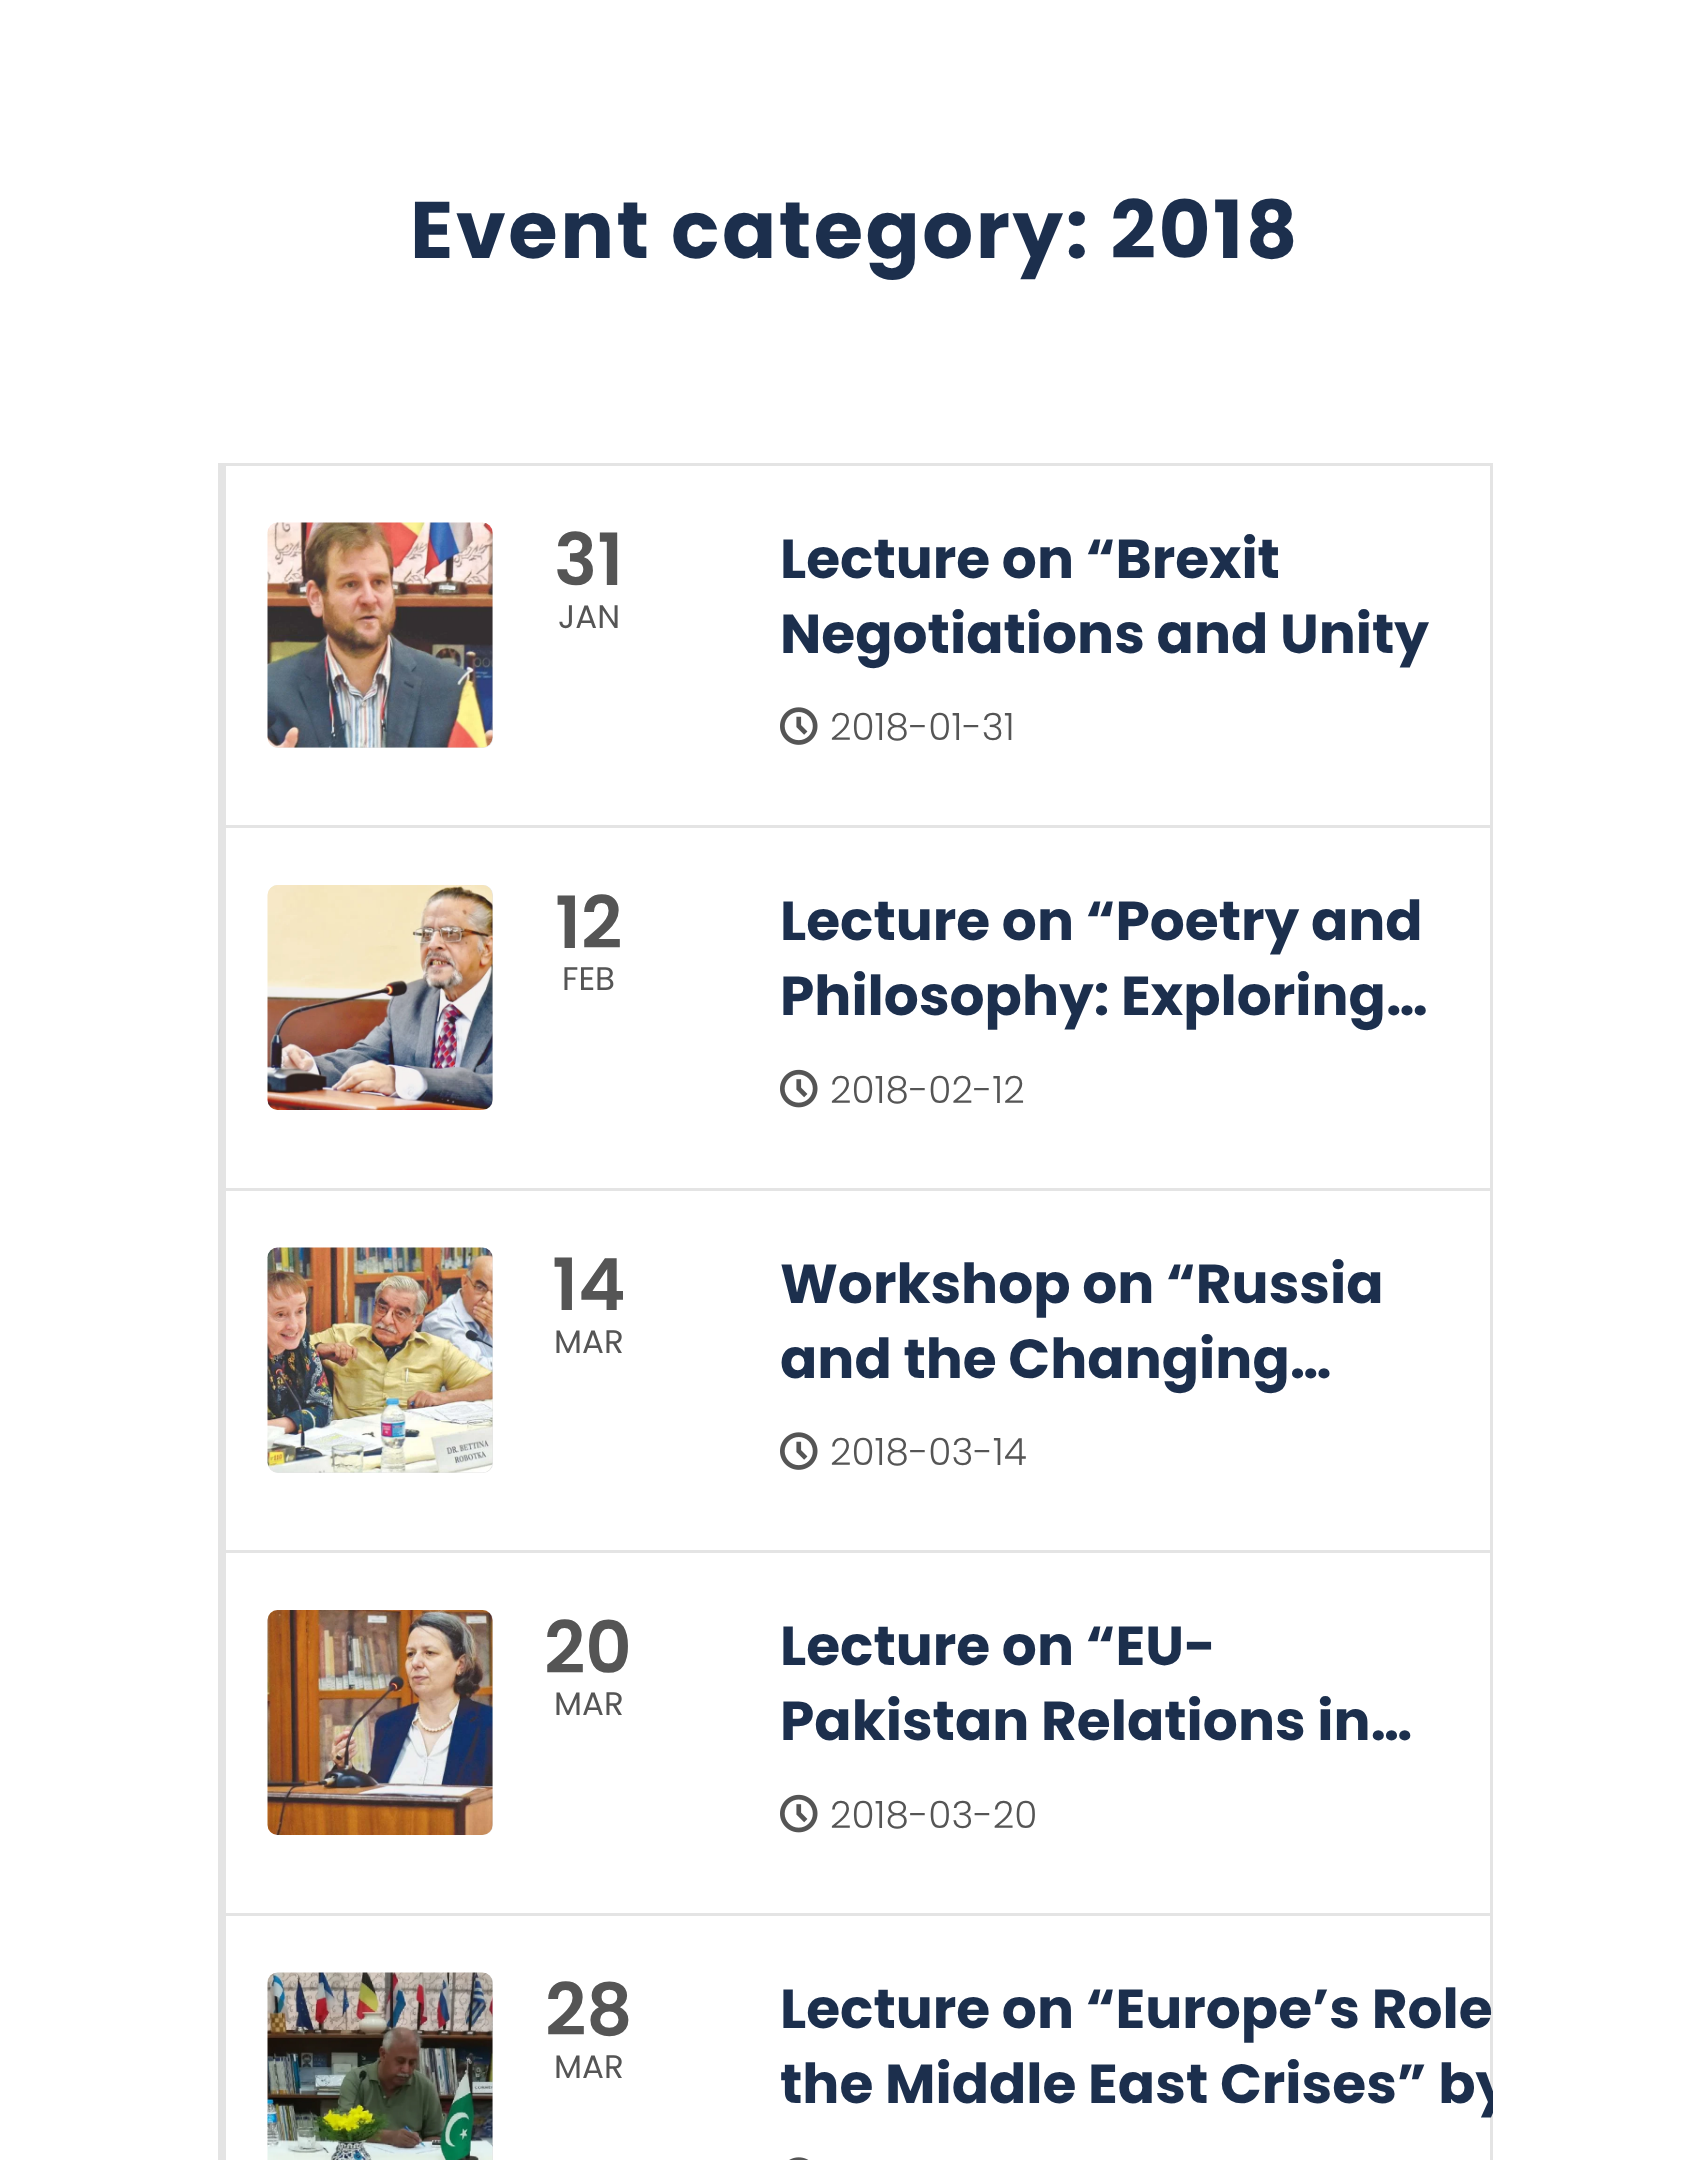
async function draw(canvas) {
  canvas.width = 1708
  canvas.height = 2160
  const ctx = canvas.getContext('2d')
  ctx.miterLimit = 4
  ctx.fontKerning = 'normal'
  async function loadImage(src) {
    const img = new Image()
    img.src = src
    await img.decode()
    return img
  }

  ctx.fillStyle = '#fff'
  ctx.fillRect(0, 0, 1708, 2160)
  ctx.letterSpacing = '2.5px'
  ctx.font = 'bold 80px Poppins'
  ctx.fillStyle = '#1c2f4d'
  ctx.fillText('Event category: 2018', 410, 258)
  ctx.fillStyle = '#e4e4e4'
  ctx.fillRect(218, 463, 1275, 3)
  ctx.fillRect(1490, 463, 3, 362)
  ctx.fillRect(218, 465, 8, 360)
  ctx.beginPath()
  ctx.roundRect(268, 523, 225, 225, 10)
  ctx.fill()
  ctx.drawImage(await loadImage('image0.png'), 267, 522, 226, 226)
  ctx.letterSpacing = '0px'
  ctx.font = '600 72px Poppins'
  ctx.fillStyle = '#555'
  ctx.fillText('31', 554, 585)
  ctx.font = '32.5px Poppins'
  ctx.fillText('JAN', 558, 628)
  ctx.font = 'bold 55px Poppins'
  ctx.fillStyle = '#1c2f4d'
  ctx.fillText('Lecture on “Brexit', 780, 578)
  ctx.fillText('Negotiations and Unity', 780, 653)
  ctx.drawImage(await loadImage('image1.png'), 780, 707, 38, 38)
  ctx.font = '300 37.5px Poppins'
  ctx.fillStyle = '#555'
  ctx.fillText('2018-01-31', 830, 740)
  ctx.fillStyle = '#e4e4e4'
  ctx.fillRect(218, 825, 1275, 3)
  ctx.fillRect(1490, 825, 3, 363)
  ctx.fillRect(218, 828, 8, 360)
  ctx.beginPath()
  ctx.roundRect(268, 885, 225, 225, 10)
  ctx.fill()
  ctx.drawImage(await loadImage('image2.png'), 267, 885, 226, 225)
  ctx.font = '600 72px Poppins'
  ctx.fillStyle = '#555'
  ctx.fillText('12', 555, 948)
  ctx.font = '32.5px Poppins'
  ctx.fillText('FEB', 562, 990)
  ctx.font = 'bold 55px Poppins'
  ctx.fillStyle = '#1c2f4d'
  ctx.fillText('Lecture on “Poetry and', 780, 940)
  ctx.fillText('Philosophy: Exploring…', 780, 1015)
  ctx.drawImage(await loadImage('image3.png'), 780, 1069, 38, 39)
  ctx.font = '300 37.5px Poppins'
  ctx.fillStyle = '#555'
  ctx.fillText('2018-02-12', 830, 1103)
  ctx.fillStyle = '#e4e4e4'
  ctx.fillRect(218, 1188, 1275, 3)
  ctx.fillRect(1490, 1188, 3, 362)
  ctx.fillRect(218, 1190, 8, 360)
  ctx.beginPath()
  ctx.roundRect(268, 1248, 225, 225, 10)
  ctx.fill()
  ctx.drawImage(await loadImage('image4.png'), 267, 1247, 226, 226)
  ctx.font = '600 72px Poppins'
  ctx.fillStyle = '#555'
  ctx.fillText('14', 552, 1310)
  ctx.font = '32.5px Poppins'
  ctx.fillText('MAR', 554, 1353)
  ctx.font = 'bold 55px Poppins'
  ctx.fillStyle = '#1c2f4d'
  ctx.fillText('Workshop on “Russia', 780, 1303)
  ctx.fillText('and the Changing…', 780, 1378)
  ctx.drawImage(await loadImage('image1.png'), 780, 1432, 38, 38)
  ctx.font = '300 37.5px Poppins'
  ctx.fillStyle = '#555'
  ctx.fillText('2018-03-14', 830, 1465)
  ctx.fillStyle = '#e4e4e4'
  ctx.fillRect(218, 1550, 1275, 3)
  ctx.fillRect(1490, 1550, 3, 363)
  ctx.fillRect(218, 1553, 8, 360)
  ctx.beginPath()
  ctx.roundRect(268, 1610, 225, 225, 10)
  ctx.fill()
  ctx.drawImage(await loadImage('image5.png'), 267, 1610, 226, 225)
  ctx.font = '600 72px Poppins'
  ctx.fillStyle = '#555'
  ctx.fillText('20', 544, 1673)
  ctx.font = '32.5px Poppins'
  ctx.fillText('MAR', 554, 1715)
  ctx.font = 'bold 55px Poppins'
  ctx.fillStyle = '#1c2f4d'
  ctx.fillText('Lecture on “EU-', 780, 1665)
  ctx.fillText('Pakistan Relations in…', 780, 1740)
  ctx.drawImage(await loadImage('image3.png'), 780, 1794, 38, 39)
  ctx.font = '300 37.5px Poppins'
  ctx.fillStyle = '#555'
  ctx.fillText('2018-03-20', 830, 1828)
  ctx.fillStyle = '#e4e4e4'
  ctx.fillRect(218, 1913, 1275, 3)
  ctx.fillRect(1490, 1913, 3, 247)
  ctx.fillRect(218, 1915, 8, 245)
  ctx.beginPath()
  ctx.roundRect(268, 1973, 225, 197, 10)
  ctx.fill()
  ctx.drawImage(await loadImage('image6.png'), 267, 1972, 226, 188)
  ctx.font = '600 72px Poppins'
  ctx.fillStyle = '#555'
  ctx.fillText('28', 545, 2035)
  ctx.font = '32.5px Poppins'
  ctx.fillText('MAR', 554, 2078)
  ctx.font = 'bold 55px Poppins'
  ctx.fillStyle = '#1c2f4d'
  ctx.fillText('Lecture on “Europe’s Role', 780, 2028)
  ctx.save()
  ctx.beginPath()
  ctx.rect(780, 1973, 713, 150)
  ctx.clip()
  ctx.fillText('the Middle East Crises” by', 780, 2103)
  ctx.restore()
  ctx.drawImage(await loadImage('image7.png'), 789, 2157, 20, 3)
}

draw(document.querySelector('canvas'))
